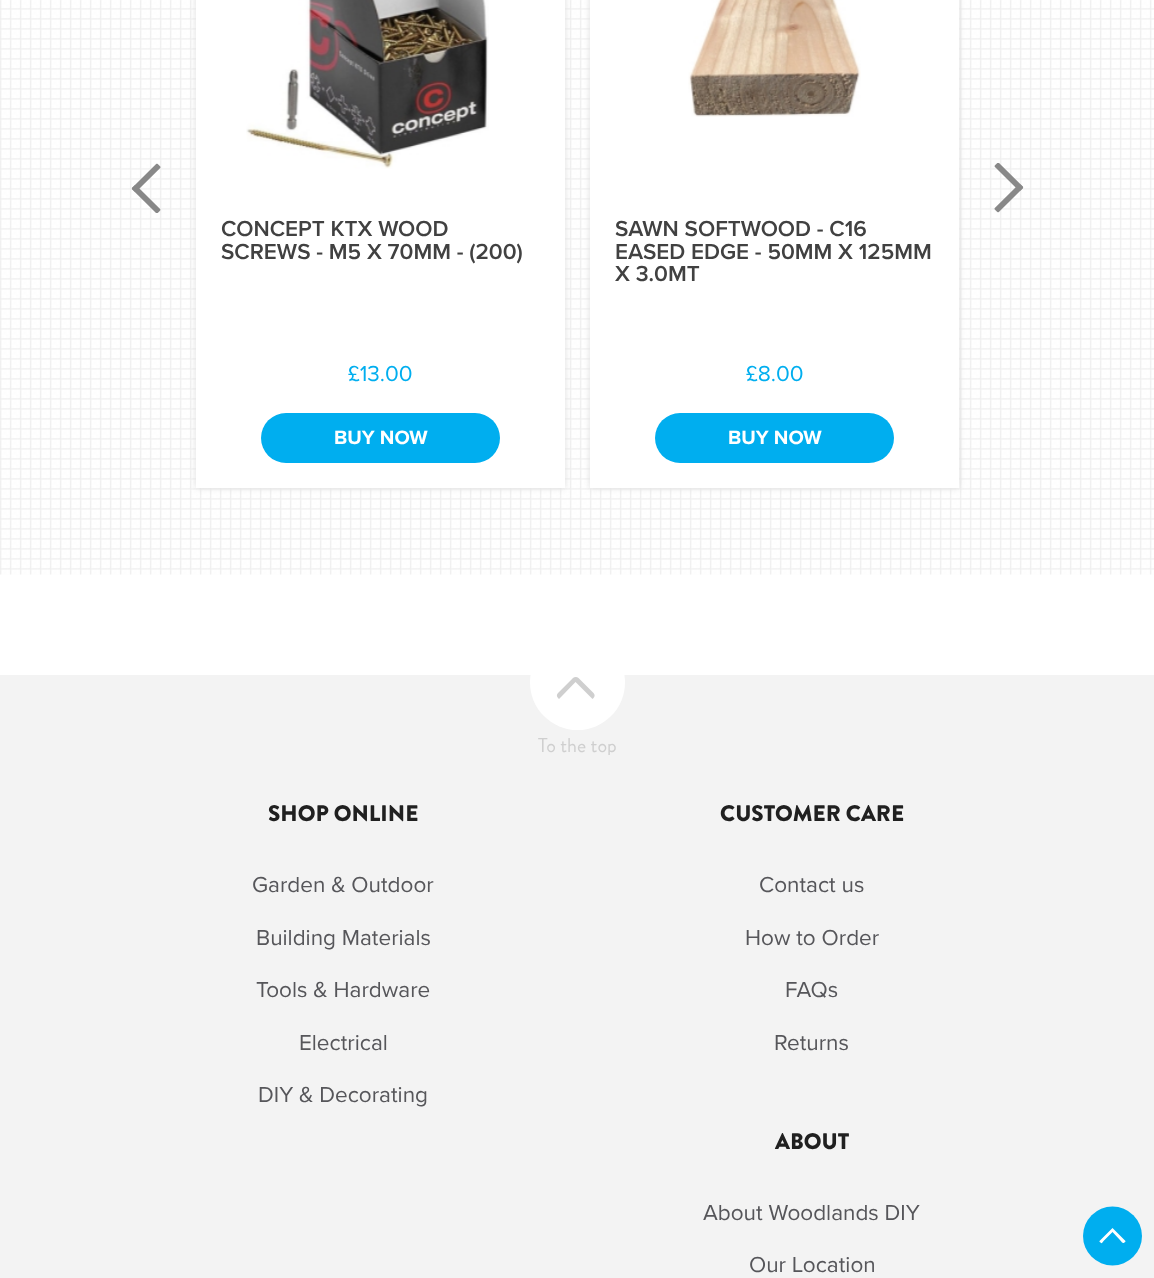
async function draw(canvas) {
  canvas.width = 1154
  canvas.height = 1278
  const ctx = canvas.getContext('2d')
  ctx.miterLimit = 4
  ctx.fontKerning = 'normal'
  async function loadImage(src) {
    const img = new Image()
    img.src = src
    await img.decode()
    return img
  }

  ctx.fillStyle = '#fff'
  ctx.fillRect(0, 0, 1154, 1278)
  ctx.drawImage(await loadImage('image0.png'), 0, 0, 1154, 575)
  ctx.drawImage(await loadImage('image1.png'), 131, 163, 30, 50)
  ctx.drawImage(await loadImage('image2.png'), 994, 163, 30, 50)
  ctx.fillStyle = '#dedede'
  ctx.filter = 'blur(3px)'
  ctx.beginPath()
  ctx.rect(196, -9, 369, 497)
  ctx.fill()
  ctx.filter = 'none'
  ctx.fillStyle = '#fff'
  ctx.fillRect(196, 0, 369, 488)
  ctx.drawImage(await loadImage('image3.png'), 246, 0, 243, 169)
  ctx.font = '600 22.5px Proxima Nova'
  ctx.fillStyle = '#414141'
  ctx.fillText('CONCEPT KTX WOOD', 221, 236)
  ctx.fillText('SCREWS - M5 X 70MM - (200)', 221, 259)
  ctx.font = '22.5px Proxima Nova'
  ctx.fillStyle = '#00aeef'
  ctx.fillText('£13.00', 348, 381)
  ctx.beginPath()
  ctx.roundRect(261, 413, 239, 50, 25)
  ctx.fill()
  ctx.font = 'bold 20px Proxima Nova'
  ctx.fillStyle = '#fff'
  ctx.fillText('BUY NOW', 334, 444)
  ctx.fillStyle = '#dedede'
  ctx.filter = 'blur(3px)'
  ctx.beginPath()
  ctx.rect(590, -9, 369, 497)
  ctx.fill()
  ctx.filter = 'none'
  ctx.fillStyle = '#fff'
  ctx.fillRect(590, 0, 369, 488)
  ctx.drawImage(await loadImage('image4.png'), 688, 0, 173, 117)
  ctx.font = '600 22.5px Proxima Nova'
  ctx.fillStyle = '#414141'
  ctx.fillText('SAWN SOFTWOOD - C16', 615, 236)
  ctx.fillText('EASED EDGE - 50MM X 125MM', 615, 259)
  ctx.fillText('X 3.0MT', 615, 281)
  ctx.font = '22.5px Proxima Nova'
  ctx.fillStyle = '#00aeef'
  ctx.fillText('£8.00', 746, 381)
  ctx.beginPath()
  ctx.roundRect(655, 413, 239, 50, 25)
  ctx.fill()
  ctx.font = 'bold 20px Proxima Nova'
  ctx.fillStyle = '#fff'
  ctx.fillText('BUY NOW', 728, 444)
  ctx.fillStyle = '#f3f3f3'
  ctx.fillRect(0, 675, 1154, 603)
  ctx.save()
  ctx.beginPath()
  ctx.rect(530, 675, 95, 80)
  ctx.clip()
  ctx.fillStyle = '#fff'
  ctx.beginPath()
  ctx.arc(577.5, 682.5, 47.5, 0, 2 * Math.PI)
  ctx.fill()
  ctx.restore()
  ctx.fillStyle = '#cfcfcf'
  ctx.beginPath()
  ctx.moveTo(578.5, 678)
  ctx.lineTo(593.5, 693)
  ctx.bezierCurveTo(595, 694.5, 595, 696.5, 593.5, 698)
  ctx.lineTo(578.5, 713)
  ctx.bezierCurveTo(577, 714.5, 574.5, 714.5, 573, 713)
  ctx.lineTo(558, 698)
  ctx.bezierCurveTo(556.5, 696.5, 556.5, 694.5, 558, 693)
  ctx.lineTo(573, 678)
  ctx.bezierCurveTo(574.5, 676.5, 577, 676.5, 578.5, 678)
  ctx.closePath()
  ctx.moveTo(575.5, 682)
  ctx.lineTo(592.5, 699)
  ctx.lineTo(578.5, 713)
  ctx.bezierCurveTo(577, 714.5, 574.5, 714.5, 573, 713)
  ctx.lineTo(559, 699)
  ctx.lineTo(561.5, 696.5)
  ctx.closePath()
  ctx.fill('evenodd')
  ctx.save()
  ctx.beginPath()
  ctx.rect(530, 675, 95, 80)
  ctx.clip()
  ctx.font = '20px Brandon Grotesque'
  ctx.fillText('To the top', 538, 752)
  ctx.restore()
  ctx.font = '900 22.5px Brandon Grotesque'
  ctx.fillStyle = '#202020'
  ctx.fillText('SHOP ONLINE', 268, 821)
  ctx.font = '22.5px Proxima Nova'
  ctx.fillStyle = '#56565a'
  ctx.fillText('Garden & Outdoor', 252, 892)
  ctx.fillText('Building Materials', 256, 945)
  ctx.fillText('Tools & Hardware', 256, 997)
  ctx.fillText('Electrical', 299, 1050)
  ctx.fillText('DIY & Decorating', 258, 1102)
  ctx.font = '900 22.5px Brandon Grotesque'
  ctx.fillStyle = '#202020'
  ctx.fillText('CUSTOMER CARE', 720, 821)
  ctx.font = '22.5px Proxima Nova'
  ctx.fillStyle = '#56565a'
  ctx.fillText('Contact us', 759, 892)
  ctx.fillText('How to Order', 745, 945)
  ctx.fillText('FAQs', 785, 997)
  ctx.fillText('Returns', 774, 1050)
  ctx.font = '900 22.5px Brandon Grotesque'
  ctx.fillStyle = '#202020'
  ctx.fillText('ABOUT', 775, 1149)
  ctx.font = '22.5px Proxima Nova'
  ctx.fillStyle = '#56565a'
  ctx.fillText('About Woodlands DIY', 703, 1220)
  ctx.fillText('Our Location', 749, 1272)
  ctx.fillStyle = '#00aeef'
  ctx.beginPath()
  ctx.arc(1112.5, 1236, 29.5, 0, 2 * Math.PI)
  ctx.fill()
  ctx.fillStyle = '#fff'
  ctx.beginPath()
  ctx.moveTo(1125.5, 1241.5)
  ctx.lineTo(1125.5, 1241)
  ctx.lineTo(1112.5, 1228)
  ctx.lineTo(1099.5, 1241)
  ctx.bezierCurveTo(1099, 1241.5, 1100, 1242, 1100.5, 1242.5)
  ctx.bezierCurveTo(1102, 1244, 1102, 1243, 1103.5, 1241)
  ctx.lineTo(1112.5, 1232)
  ctx.lineTo(1119.5, 1239.5)
  ctx.bezierCurveTo(1123, 1243, 1122.5, 1244.5, 1125.5, 1241.5)
  ctx.closePath()
  ctx.fill()
}

draw(document.querySelector('canvas'))
